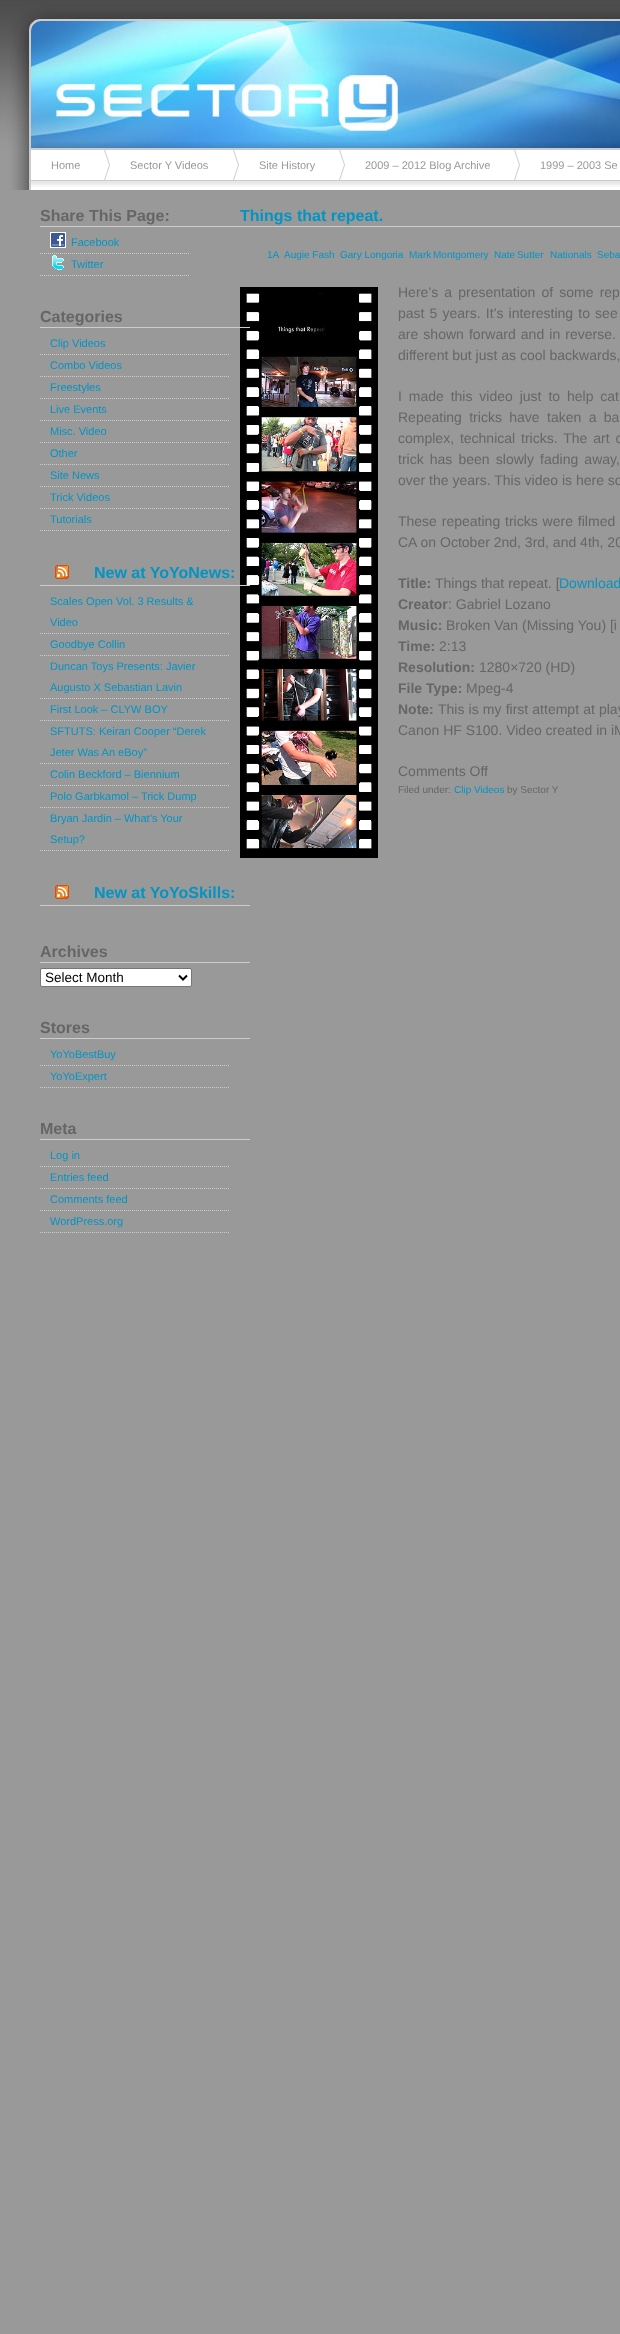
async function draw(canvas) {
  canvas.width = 620
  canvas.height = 2334
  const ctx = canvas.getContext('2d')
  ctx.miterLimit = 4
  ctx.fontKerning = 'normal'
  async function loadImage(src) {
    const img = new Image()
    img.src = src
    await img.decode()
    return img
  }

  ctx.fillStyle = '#999'
  ctx.fillRect(0, 0, 620, 2334)
  ctx.fillStyle = '#fff'
  ctx.fillRect(31, 150, 589, 40)
  ctx.drawImage(await loadImage('image0.png'), 0, 150, 31, 40)
  ctx.drawImage(await loadImage('image1.png'), 0, 0, 620, 150)
  ctx.drawImage(await loadImage('image2.png'), 24, 174, 596, 13)
  ctx.drawImage(await loadImage('image3.png'), 104, 150, 6, 30)
  ctx.font = '11px Liberation Sans'
  ctx.fillStyle = '#999'
  ctx.fillText('Home', 51, 169)
  ctx.drawImage(await loadImage('image4.png'), 233, 150, 6, 30)
  ctx.fillText('Sector Y Videos', 130, 169)
  ctx.drawImage(await loadImage('image3.png'), 339, 150, 6, 30)
  ctx.fillText('Site History', 259, 169)
  ctx.drawImage(await loadImage('image3.png'), 514, 150, 6, 30)
  ctx.fillText('2009 – 2012 Blog Archive', 365, 169)
  ctx.fillText('1999 – 2003 Se', 540, 169)
  ctx.font = 'bold 16px Liberation Sans'
  ctx.fillStyle = '#666'
  ctx.fillText('Share This Page:', 40, 221)
  ctx.beginPath()
  ctx.moveTo(40, 253.5)
  ctx.lineTo(190, 253.5)
  ctx.strokeStyle = '#ccc'
  ctx.setLineDash([1, 1])
  ctx.stroke()
  ctx.drawImage(await loadImage('image5.png'), 50, 232, 16, 16)
  ctx.font = '11px Liberation Sans'
  ctx.fillStyle = '#0195c5'
  ctx.fillText('Facebook', 71, 246)
  ctx.beginPath()
  ctx.moveTo(40, 275.5)
  ctx.lineTo(190, 275.5)
  ctx.stroke()
  ctx.drawImage(await loadImage('image6.png'), 52, 255, 12, 15)
  ctx.fillText('Twitter', 71, 268)
  ctx.drawImage(await loadImage('image8.png'), 240, 287, 138, 571)
  ctx.fillStyle = '#ccc'
  ctx.fillRect(40, 327, 210, 1)
  ctx.font = 'bold 16px Liberation Sans'
  ctx.fillStyle = '#666'
  ctx.fillText('Categories', 40, 322)
  ctx.beginPath()
  ctx.moveTo(40, 354.5)
  ctx.lineTo(230, 354.5)
  ctx.stroke()
  ctx.font = '11px Liberation Sans'
  ctx.fillStyle = '#0195c5'
  ctx.fillText('Clip Videos', 50, 347)
  ctx.beginPath()
  ctx.moveTo(40, 376.5)
  ctx.lineTo(230, 376.5)
  ctx.stroke()
  ctx.fillText('Combo Videos', 50, 369)
  ctx.beginPath()
  ctx.moveTo(40, 398.5)
  ctx.lineTo(230, 398.5)
  ctx.stroke()
  ctx.fillText('Freestyles', 50, 391)
  ctx.beginPath()
  ctx.moveTo(40, 420.5)
  ctx.lineTo(230, 420.5)
  ctx.stroke()
  ctx.fillText('Live Events', 50, 413)
  ctx.beginPath()
  ctx.moveTo(40, 442.5)
  ctx.lineTo(230, 442.5)
  ctx.stroke()
  ctx.fillText('Misc. Video', 50, 435)
  ctx.beginPath()
  ctx.moveTo(40, 464.5)
  ctx.lineTo(230, 464.5)
  ctx.stroke()
  ctx.fillText('Other', 50, 457)
  ctx.beginPath()
  ctx.moveTo(40, 486.5)
  ctx.lineTo(230, 486.5)
  ctx.stroke()
  ctx.fillText('Site News', 50, 479)
  ctx.beginPath()
  ctx.moveTo(40, 508.5)
  ctx.lineTo(230, 508.5)
  ctx.stroke()
  ctx.fillText('Trick Videos', 50, 501)
  ctx.beginPath()
  ctx.moveTo(40, 530.5)
  ctx.lineTo(230, 530.5)
  ctx.stroke()
  ctx.fillText('Tutorials', 50, 523)
  ctx.fillStyle = '#ccc'
  ctx.fillRect(40, 585, 210, 1)
  ctx.drawImage(await loadImage('image7.png'), 55, 565, 14, 14)
  ctx.font = 'bold 16px Liberation Sans'
  ctx.fillStyle = '#0195c5'
  ctx.fillText('New at YoYoNews:', 94, 578)
  ctx.beginPath()
  ctx.moveTo(40, 633.5)
  ctx.lineTo(230, 633.5)
  ctx.stroke()
  ctx.font = '11px Liberation Sans'
  ctx.fillText('Scales Open Vol. 3 Results &', 50, 605)
  ctx.fillText('Video', 50, 626)
  ctx.beginPath()
  ctx.moveTo(40, 655.5)
  ctx.lineTo(230, 655.5)
  ctx.stroke()
  ctx.fillText('Goodbye Collin', 50, 648)
  ctx.beginPath()
  ctx.moveTo(40, 698.5)
  ctx.lineTo(230, 698.5)
  ctx.stroke()
  ctx.fillText('Duncan Toys Presents: Javier', 50, 670)
  ctx.fillText('Augusto X Sebastian Lavin', 50, 691)
  ctx.beginPath()
  ctx.moveTo(40, 720.5)
  ctx.lineTo(230, 720.5)
  ctx.stroke()
  ctx.fillText('First Look – CLYW BOY', 50, 713)
  ctx.beginPath()
  ctx.moveTo(40, 763.5)
  ctx.lineTo(230, 763.5)
  ctx.stroke()
  ctx.fillText('SFTUTS: Keiran Cooper “Derek', 50, 735)
  ctx.fillText('Jeter Was An eBoy”', 50, 756)
  ctx.beginPath()
  ctx.moveTo(40, 785.5)
  ctx.lineTo(230, 785.5)
  ctx.stroke()
  ctx.fillText('Colin Beckford – Biennium', 50, 778)
  ctx.beginPath()
  ctx.moveTo(40, 807.5)
  ctx.lineTo(230, 807.5)
  ctx.stroke()
  ctx.fillText('Polo Garbkamol – Trick Dump', 50, 800)
  ctx.beginPath()
  ctx.moveTo(40, 850.5)
  ctx.lineTo(230, 850.5)
  ctx.stroke()
  ctx.fillText('Bryan Jardin – What’s Your', 50, 822)
  ctx.fillText('Setup?', 50, 843)
  ctx.fillStyle = '#ccc'
  ctx.fillRect(40, 905, 210, 1)
  ctx.drawImage(await loadImage('image7.png'), 55, 885, 14, 14)
  ctx.font = 'bold 16px Liberation Sans'
  ctx.fillStyle = '#0195c5'
  ctx.fillText('New at YoYoSkills:', 94, 898)
  ctx.fillStyle = '#ccc'
  ctx.fillRect(40, 962, 210, 1)
  ctx.fillStyle = '#666'
  ctx.fillText('Archives', 40, 957)
  ctx.fillStyle = '#fff'
  ctx.beginPath()
  ctx.roundRect(40.5, 968.5, 151, 18, 1.5)
  ctx.fill()
  ctx.strokeStyle = '#767676'
  ctx.setLineDash([])
  ctx.stroke()
  ctx.beginPath()
  ctx.moveTo(179, 975.5)
  ctx.lineTo(183, 979.5)
  ctx.lineTo(187, 975.5)
  ctx.strokeStyle = '#000'
  ctx.lineWidth = 2
  ctx.stroke()
  ctx.font = '13.5px Liberation Sans'
  ctx.fillStyle = '#000'
  ctx.fillText('Select Month', 45, 982)
  ctx.fillStyle = '#ccc'
  ctx.fillRect(40, 1038, 210, 1)
  ctx.font = 'bold 16px Liberation Sans'
  ctx.fillStyle = '#666'
  ctx.fillText('Stores', 40, 1033)
  ctx.beginPath()
  ctx.moveTo(40, 1065.5)
  ctx.lineTo(230, 1065.5)
  ctx.strokeStyle = '#ccc'
  ctx.lineWidth = 1
  ctx.setLineDash([1, 1])
  ctx.stroke()
  ctx.font = '11px Liberation Sans'
  ctx.fillStyle = '#0195c5'
  ctx.fillText('YoYoBestBuy', 50, 1058)
  ctx.beginPath()
  ctx.moveTo(40, 1087.5)
  ctx.lineTo(230, 1087.5)
  ctx.stroke()
  ctx.fillText('YoYoExpert', 50, 1080)
  ctx.fillStyle = '#ccc'
  ctx.fillRect(40, 1139, 210, 1)
  ctx.font = 'bold 16px Liberation Sans'
  ctx.fillStyle = '#666'
  ctx.fillText('Meta', 40, 1134)
  ctx.beginPath()
  ctx.moveTo(40, 1166.5)
  ctx.lineTo(230, 1166.5)
  ctx.stroke()
  ctx.font = '11px Liberation Sans'
  ctx.fillStyle = '#0195c5'
  ctx.fillText('Log in', 50, 1159)
  ctx.beginPath()
  ctx.moveTo(40, 1188.5)
  ctx.lineTo(230, 1188.5)
  ctx.stroke()
  ctx.fillText('Entries feed', 50, 1181)
  ctx.beginPath()
  ctx.moveTo(40, 1210.5)
  ctx.lineTo(230, 1210.5)
  ctx.stroke()
  ctx.fillText('Comments feed', 50, 1203)
  ctx.beginPath()
  ctx.moveTo(40, 1232.5)
  ctx.lineTo(230, 1232.5)
  ctx.stroke()
  ctx.fillText('WordPress.org', 50, 1225)
  ctx.fillStyle = '#ccc'
  ctx.fillRect(40, 226, 580, 1)
  ctx.font = 'bold 16px Liberation Sans'
  ctx.fillStyle = '#0195c5'
  ctx.fillText('Things that repeat.', 240, 221)
  ctx.font = '10px Liberation Sans'
  ctx.fillText('1A', 267, 258)
  ctx.fillText('Augie Fash', 284, 258)
  ctx.fillText('Gary Longoria', 340, 258)
  ctx.wordSpacing = '-1px'
  ctx.fillText('Mark Montgomery', 409, 258)
  ctx.fillText('Nate Sutter', 494, 258)
  ctx.wordSpacing = '0px'
  ctx.fillText('Nationals', 550, 258)
  ctx.fillText('Seba', 597, 258)
  ctx.wordSpacing = '2.25px'
  ctx.font = '14px Liberation Sans'
  ctx.fillStyle = '#666'
  ctx.fillText('Here’s a presentation of some rep', 398, 297)
  ctx.wordSpacing = '1.25px'
  ctx.fillText('past 5 years. It’s interesting to see', 398, 318)
  ctx.fillText('are shown forward and in reverse.', 398, 339)
  ctx.wordSpacing = '0px'
  ctx.fillText('different but just as cool backwards,', 398, 360)
  ctx.wordSpacing = '3px'
  ctx.fillText('I made this video just to help cat', 398, 401)
  ctx.wordSpacing = '3.5px'
  ctx.fillText('Repeating tricks have taken a ba', 398, 422)
  ctx.wordSpacing = '2px'
  ctx.fillText('complex, technical tricks. The art o', 398, 443)
  ctx.wordSpacing = '2.25px'
  ctx.fillText('trick has been slowly fading away,', 398, 464)
  ctx.wordSpacing = '0px'
  ctx.fillText('over the years. This video is here so', 398, 485)
  ctx.wordSpacing = '1px'
  ctx.fillText('These repeating tricks were filmed', 398, 526)
  ctx.wordSpacing = '0px'
  ctx.fillText('CA on October 2nd, 3rd, and 4th, 20', 398, 547)
  ctx.font = 'bold 14px Liberation Sans'
  ctx.fillText('Title:', 398, 588)
  ctx.font = '14px Liberation Sans'
  ctx.fillText('Things that repeat. [', 435, 588)
  ctx.fillStyle = '#0195c5'
  ctx.fillText('Download', 559, 588)
  ctx.font = 'bold 14px Liberation Sans'
  ctx.fillStyle = '#666'
  ctx.fillText('Creator', 398, 609)
  ctx.font = '14px Liberation Sans'
  ctx.fillText(': Gabriel Lozano', 448, 609)
  ctx.font = 'bold 14px Liberation Sans'
  ctx.fillText('Music:', 398, 630)
  ctx.font = '14px Liberation Sans'
  ctx.fillText('Broken Van (Missing You) [i', 446, 630)
  ctx.font = 'bold 14px Liberation Sans'
  ctx.fillText('Time:', 398, 651)
  ctx.font = '14px Liberation Sans'
  ctx.fillText('2:13', 439, 651)
  ctx.font = 'bold 14px Liberation Sans'
  ctx.fillText('Resolution:', 398, 672)
  ctx.font = '14px Liberation Sans'
  ctx.fillText('1280×720 (HD)', 479, 672)
  ctx.font = 'bold 14px Liberation Sans'
  ctx.fillText('File Type:', 398, 693)
  ctx.font = '14px Liberation Sans'
  ctx.fillText('Mpeg-4', 466, 693)
  ctx.font = 'bold 14px Liberation Sans'
  ctx.fillText('Note:', 398, 714)
  ctx.wordSpacing = '0.25px'
  ctx.font = '14px Liberation Sans'
  ctx.fillText('This is my first attempt at play', 438, 714)
  ctx.wordSpacing = '0px'
  ctx.fillText('Canon HF S100. Video created in iM', 398, 735)
  ctx.fillText('Comments Off', 398, 776)
  ctx.font = '10px Liberation Sans'
  ctx.fillText('Filed under:', 398, 793)
  ctx.fillStyle = '#0195c5'
  ctx.fillText('Clip Videos', 454, 793)
  ctx.fillStyle = '#666'
  ctx.fillText('by Sector Y', 507, 793)
}

draw(document.querySelector('canvas'))
